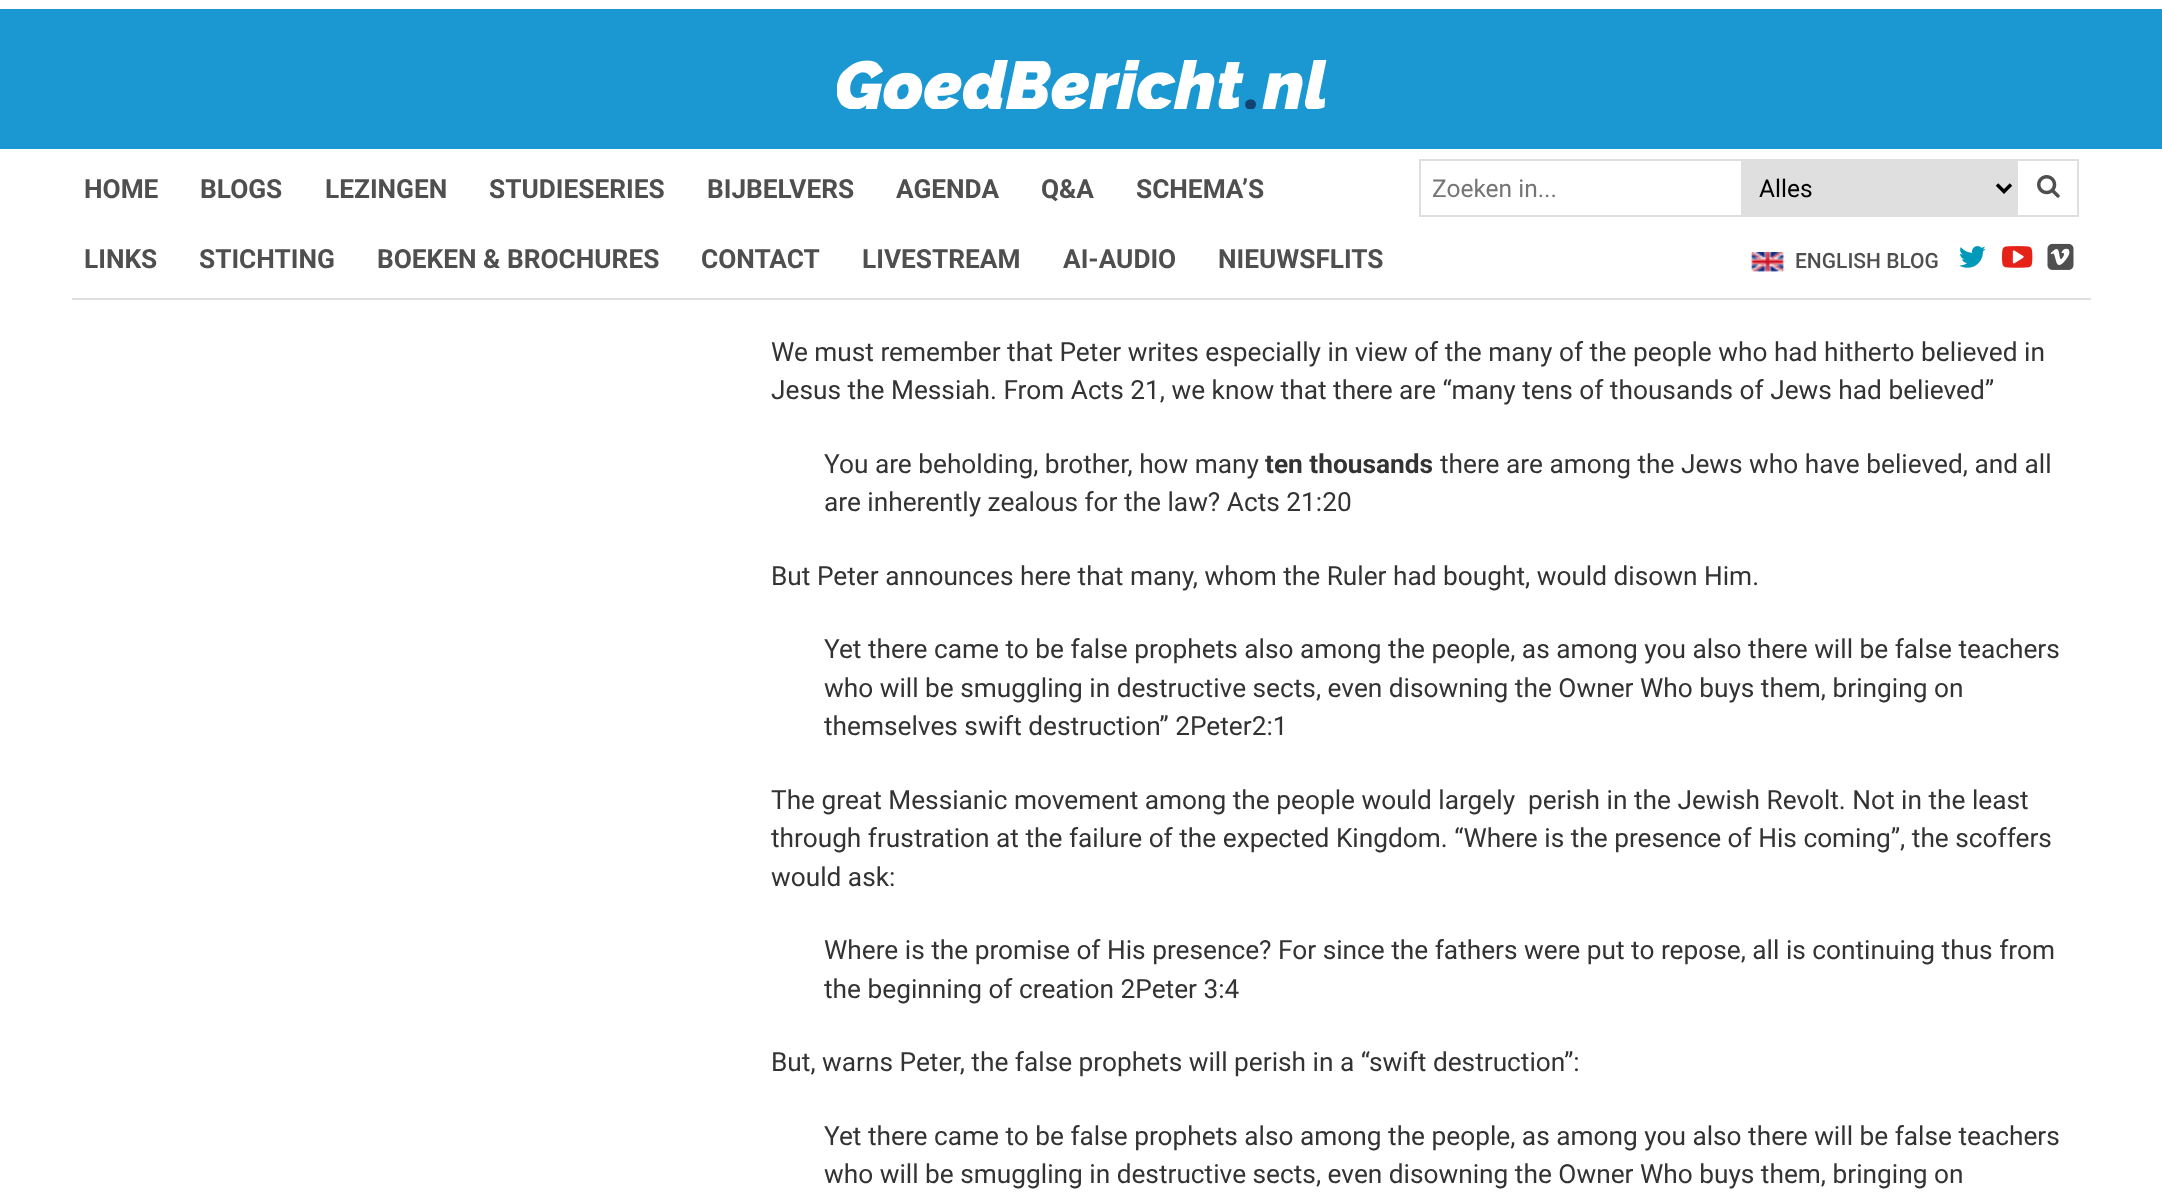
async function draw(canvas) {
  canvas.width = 2162
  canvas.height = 1202
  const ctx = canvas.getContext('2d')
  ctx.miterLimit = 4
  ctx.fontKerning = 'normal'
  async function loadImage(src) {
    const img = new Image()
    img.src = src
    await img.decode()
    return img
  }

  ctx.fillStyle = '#fff'
  ctx.fillRect(0, 0, 2162, 1202)
  ctx.fillStyle = '#1b97d2'
  ctx.fillRect(0, 9, 2162, 140)
  ctx.drawImage(await loadImage('image0.png'), 837, 60, 490, 49)
  ctx.font = 'bold 26.25px Roboto'
  ctx.fillStyle = '#4f4f4f'
  ctx.fillText('HOME', 84, 198)
  ctx.fillText('BLOGS', 200, 198)
  ctx.fillText('LEZINGEN', 325, 198)
  ctx.fillText('STUDIESERIES', 489, 198)
  ctx.fillText('BIJBELVERS', 707, 198)
  ctx.fillText('AGENDA', 896, 198)
  ctx.fillText('Q&A', 1041, 198)
  ctx.fillText('SCHEMA’S', 1136, 198)
  ctx.fillStyle = '#dfdfdf'
  ctx.fillRect(1419, 159, 322, 2)
  ctx.fillRect(1419, 215, 322, 2)
  ctx.fillRect(1419, 159, 2, 58)
  ctx.font = '24.5px Roboto'
  ctx.fillStyle = '#757575'
  ctx.fillText('Zoeken in...', 1432, 197)
  ctx.fillStyle = '#dfdfdf'
  ctx.fillRect(1741, 159, 277, 58)
  ctx.beginPath()
  ctx.moveTo(1997, 184.5)
  ctx.lineTo(2004, 191.5)
  ctx.lineTo(2011, 184.5)
  ctx.strokeStyle = '#000'
  ctx.lineWidth = 3.5
  ctx.stroke()
  ctx.fillStyle = '#000'
  ctx.fillText('Alles', 1759, 197)
  ctx.fillStyle = '#dfdfdf'
  ctx.fillRect(2018, 159, 61, 2)
  ctx.fillRect(2077, 159, 2, 58)
  ctx.fillRect(2018, 215, 61, 2)
  ctx.drawImage(await loadImage('image1.png'), 2037, 175, 23, 23)
  ctx.fillRect(72, 298, 2019, 2)
  ctx.font = 'bold 26.25px Roboto'
  ctx.fillStyle = '#4f4f4f'
  ctx.fillText('LINKS', 84, 268)
  ctx.fillText('STICHTING', 199, 268)
  ctx.fillText('BOEKEN & BROCHURES', 377, 268)
  ctx.fillText('CONTACT', 701, 268)
  ctx.fillText('LIVESTREAM', 862, 268)
  ctx.fillText('AI-AUDIO', 1063, 268)
  ctx.fillText('NIEUWSFLITS', 1218, 268)
  ctx.drawImage(await loadImage('image2.png'), 1751, 252, 33, 20)
  ctx.font = '500 21px Roboto'
  ctx.fillText('ENGLISH BLOG', 1795, 268)
  ctx.drawImage(await loadImage('image3.png'), 1959, 246, 27, 22)
  ctx.drawImage(await loadImage('image4.png'), 2002, 246, 31, 22)
  ctx.drawImage(await loadImage('image5.png'), 2047, 243, 27, 27)
  ctx.font = '26.25px Roboto'
  ctx.fillStyle = '#333'
  ctx.fillText('We must remember that Peter writes especially in view of the many of the people who had hitherto believed in', 771, 361)
  ctx.fillText('Jesus the Messiah. From Acts 21, we know that there are “many tens of thousands of Jews had believed”', 771, 399)
  ctx.fillText('You are beholding, brother, how many', 824, 473)
  ctx.font = 'bold 26.25px Roboto'
  ctx.fillText('ten thousands', 1265, 473)
  ctx.font = '26.25px Roboto'
  ctx.fillText('there are among the Jews who have believed, and all', 1440, 473)
  ctx.fillText('are inherently zealous for the law? Acts 21:20', 824, 511)
  ctx.fillText('But Peter announces here that many, whom the Ruler had bought, would disown Him.', 771, 585)
  ctx.fillText('Yet there came to be false prophets also among the people, as among you also there will be false teachers', 824, 658)
  ctx.fillText('who will be smuggling in destructive sects, even disowning the Owner Who buys them, bringing on', 824, 697)
  ctx.fillText('themselves swift destruction” 2Peter2:1', 824, 735)
  ctx.fillText('The great Messianic movement among the people would largely  perish in the Jewish Revolt. Not in the least', 771, 809)
  ctx.fillText('through frustration at the failure of the expected Kingdom. “Where is the presence of His coming”, the scoffers', 771, 847)
  ctx.fillText('would ask:', 771, 886)
  ctx.fillText('Where is the promise of His presence? For since the fathers were put to repose, all is continuing thus from', 824, 959)
  ctx.fillText('the beginning of creation 2Peter 3:4', 824, 998)
  ctx.fillText('But, warns Peter, the false prophets will perish in a “swift destruction”:', 771, 1071)
  ctx.fillText('Yet there came to be false prophets also among the people, as among you also there will be false teachers', 824, 1145)
  ctx.fillText('who will be smuggling in destructive sects, even disowning the Owner Who buys them, bringing on', 824, 1183)
}

draw(document.querySelector('canvas'))
